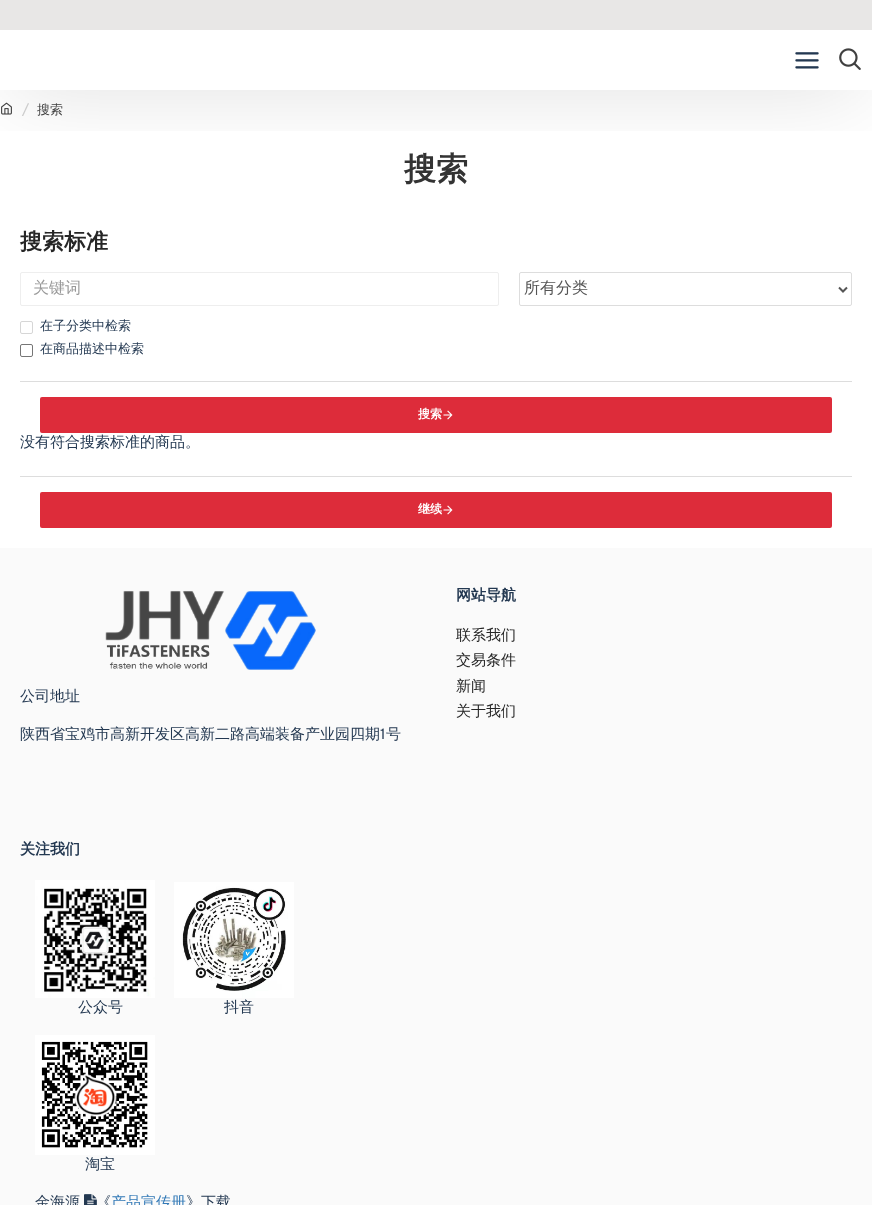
async function draw(canvas) {
  canvas.width = 872
  canvas.height = 1205
  const ctx = canvas.getContext('2d')
  ctx.miterLimit = 4
  ctx.fontKerning = 'normal'
  async function loadImage(src) {
    const img = new Image()
    img.src = src
    await img.decode()
    return img
  }

  ctx.fillStyle = '#fff'
  ctx.fillRect(0, 0, 872, 1205)
  ctx.drawImage(await loadImage('image2.png'), 1, 102, 11, 13)
  ctx.save()
  ctx.beginPath()
  ctx.rect(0, 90, 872, 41)
  ctx.clip()
  ctx.fillStyle = '#00000033'
  ctx.filter = 'blur(42.5px)'
  ctx.beginPath()
  ctx.rect(10, 40, 852, 40)
  ctx.fill()
  ctx.filter = 'none'
  ctx.restore()
  ctx.drawImage(await loadImage('image0.png'), 795, 52, 24, 17)
  ctx.drawImage(await loadImage('image1.png'), 839, 48, 22, 22)
  ctx.fillStyle = '#e8e7e6'
  ctx.fillRect(0, 0, 872, 30)
  ctx.font = '15px Overpass'
  ctx.fillStyle = '#ccc'
  ctx.fillText('/', 22, 114)
  ctx.font = '500 13px WenQuanYi Zen Hei'
  ctx.fillStyle = '#404040'
  ctx.fillText('搜索', 37, 114)
  ctx.font = 'bold 32px WenQuanYi Zen Hei'
  ctx.fillStyle = '#333'
  ctx.fillText('搜索', 404, 180)
  ctx.font = 'bold 22px WenQuanYi Zen Hei'
  ctx.fillStyle = '#262626'
  ctx.fillText('搜索标准', 20, 249)
  ctx.beginPath()
  ctx.roundRect(20.5, 272.5, 478, 33, 1.5)
  ctx.strokeStyle = '#eee'
  ctx.stroke()
  ctx.font = '500 16px WenQuanYi Zen Hei'
  ctx.fillStyle = '#999'
  ctx.fillText('关键词', 33, 293)
  ctx.beginPath()
  ctx.roundRect(519.5, 272.5, 332, 33, 1.5)
  ctx.strokeStyle = '#ddd'
  ctx.stroke()
  ctx.beginPath()
  ctx.moveTo(839, 287.5)
  ctx.lineTo(843, 291.5)
  ctx.lineTo(847, 287.5)
  ctx.strokeStyle = '#555'
  ctx.lineWidth = 2
  ctx.stroke()
  ctx.fillStyle = '#555'
  ctx.fillText('所有分类', 524, 293)
  ctx.beginPath()
  ctx.roundRect(20.5, 321.5, 12, 12, 1.5)
  ctx.strokeStyle = '#d6d6d6'
  ctx.lineWidth = 1
  ctx.stroke()
  ctx.font = '500 13px WenQuanYi Zen Hei'
  ctx.fillStyle = '#233851'
  ctx.fillText('在子分类中检索', 40, 330)
  ctx.beginPath()
  ctx.roundRect(20.5, 344.5, 12, 12, 1.5)
  ctx.strokeStyle = '#767676'
  ctx.stroke()
  ctx.fillText('在商品描述中检索', 40, 353)
  ctx.fillStyle = '#ddd'
  ctx.fillRect(20, 381, 832, 1)
  ctx.fillStyle = '#dd2c3a'
  ctx.beginPath()
  ctx.roundRect(40, 397, 792, 36, 2)
  ctx.fill()
  ctx.font = 'bold 12px WenQuanYi Zen Hei'
  ctx.fillStyle = '#fff'
  ctx.fillText('搜索', 418, 418)
  ctx.drawImage(await loadImage('image3.png'), 443, 410, 10, 10)
  ctx.font = '500 15px WenQuanYi Zen Hei'
  ctx.fillStyle = '#233851'
  ctx.fillText('没有符合搜索标准的商品。', 20, 447)
  ctx.fillStyle = '#ddd'
  ctx.fillRect(20, 476, 832, 1)
  ctx.fillStyle = '#dd2c3a'
  ctx.beginPath()
  ctx.roundRect(40, 492, 792, 36, 2)
  ctx.fill()
  ctx.font = 'bold 12px WenQuanYi Zen Hei'
  ctx.fillStyle = '#fff'
  ctx.fillText('继续', 418, 513)
  ctx.drawImage(await loadImage('image3.png'), 443, 505, 10, 10)
  ctx.fillStyle = '#fafafa'
  ctx.fillRect(0, 548, 872, 657)
  ctx.drawImage(await loadImage('image4.png'), 105, 590, 211, 80)
  ctx.font = '500 15px WenQuanYi Zen Hei'
  ctx.fillStyle = '#233851'
  ctx.fillText('公司地址', 20, 701)
  ctx.fillText('陕西省宝鸡市高新开发区高新二路高端装备产业园四期', 20, 739)
  ctx.font = '15px Overpass'
  ctx.fillText('1', 380, 739)
  ctx.font = '500 15px WenQuanYi Zen Hei'
  ctx.fillText('号', 386, 739)
  ctx.font = 'bold 15px WenQuanYi Zen Hei'
  ctx.fillText('网站导航', 456, 600)
  ctx.font = '500 15px WenQuanYi Zen Hei'
  ctx.fillStyle = '#262626'
  ctx.fillText('联系我们', 456, 640)
  ctx.fillText('交易条件', 456, 665)
  ctx.fillText('新闻', 456, 691)
  ctx.fillText('关于我们', 456, 716)
  ctx.font = 'bold 15px WenQuanYi Zen Hei'
  ctx.fillStyle = '#233851'
  ctx.fillText('关注我们', 20, 854)
  ctx.drawImage(await loadImage('image5.png'), 35, 880, 120, 118)
  ctx.font = '500 15px WenQuanYi Zen Hei'
  ctx.fillText('公众号', 78, 1012)
  ctx.drawImage(await loadImage('image6.png'), 174, 882, 120, 116)
  ctx.fillText('抖音', 224, 1012)
  ctx.drawImage(await loadImage('image7.png'), 35, 1035, 120, 120)
  ctx.fillText('淘宝', 85, 1169)
  ctx.fillText('金海源', 35, 1207)
  ctx.drawImage(await loadImage('image8.png'), 84, 1194, 13, 11)
  ctx.fillText('《', 96, 1207)
  ctx.fillStyle = '#337ab7'
  ctx.fillText('产品宣传册', 111, 1207)
  ctx.fillStyle = '#233851'
  ctx.fillText('》下载', 186, 1207)
}

draw(document.querySelector('canvas'))
